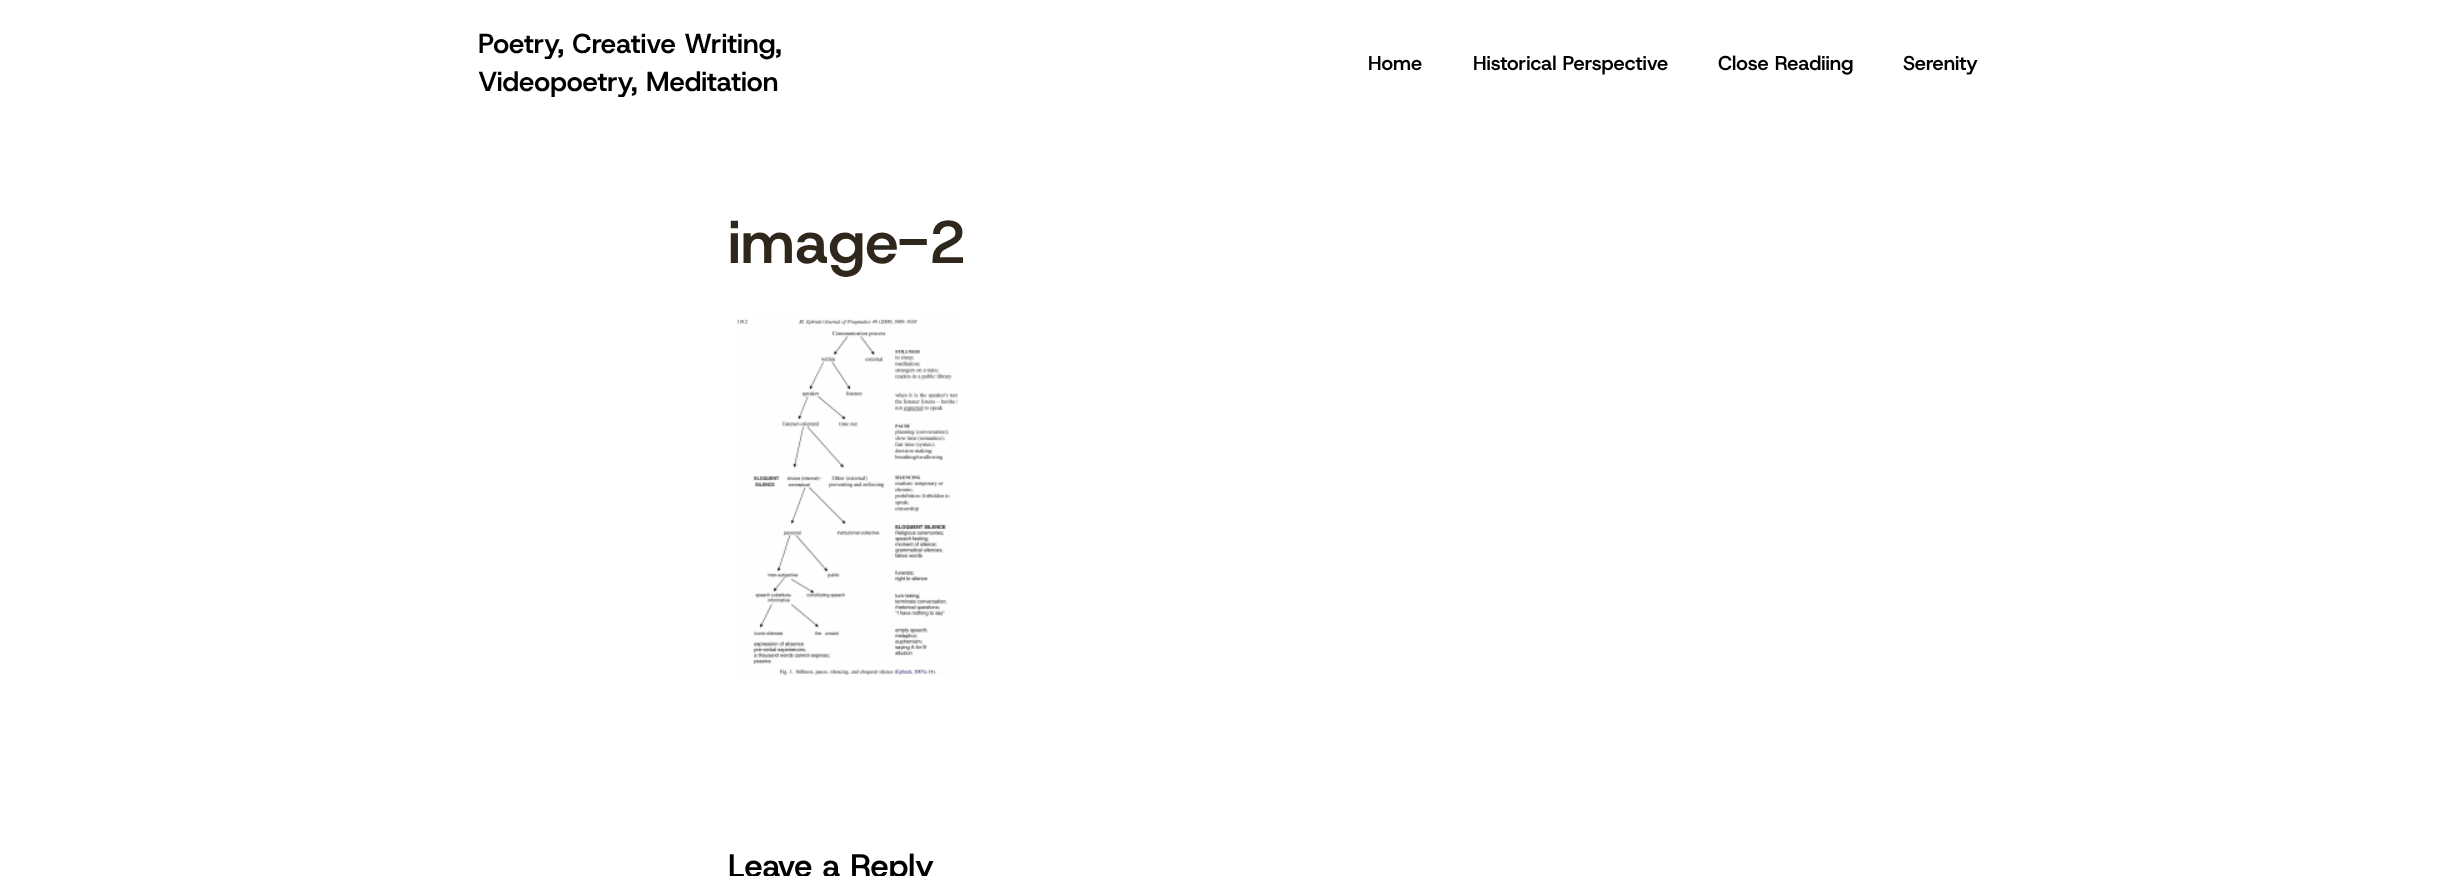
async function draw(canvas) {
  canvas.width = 2456
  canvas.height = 876
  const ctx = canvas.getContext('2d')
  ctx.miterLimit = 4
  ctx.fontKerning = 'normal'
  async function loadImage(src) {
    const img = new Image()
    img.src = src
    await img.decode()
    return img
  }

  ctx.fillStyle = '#fff'
  ctx.fillRect(0, 0, 2456, 876)
  ctx.font = '600 27.5px Host Grotesk'
  ctx.fillStyle = '#000'
  ctx.fillText('Poetry, Creative Writing,', 478, 53)
  ctx.fillText('Videopoetry, Meditation', 478, 91)
  ctx.font = '600 20px Host Grotesk'
  ctx.fillText('Home', 1368, 70)
  ctx.fillText('Historical Perspective', 1473, 70)
  ctx.fillText('Close Readiing', 1718, 70)
  ctx.fillText('Serenity', 1903, 70)
  ctx.font = '600 60px Host Grotesk'
  ctx.fillStyle = '#30271c'
  ctx.fillText('image-2', 728, 263)
  ctx.drawImage(await loadImage('image0.png'), 737, 318, 221, 358)
  ctx.font = '600 32.5px Host Grotesk'
  ctx.fillStyle = '#000'
  ctx.fillText('Leave a Reply', 728, 877)
}

draw(document.querySelector('canvas'))
